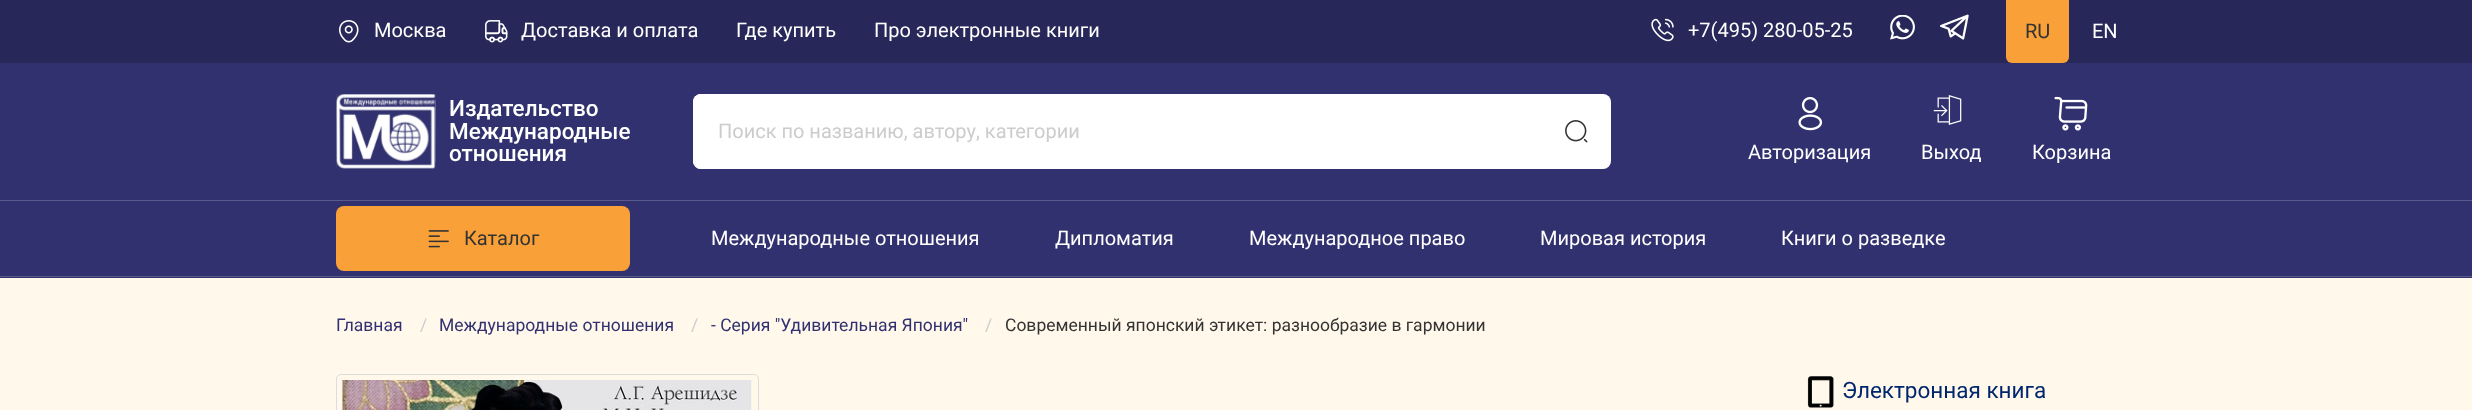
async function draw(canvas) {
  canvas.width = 2472
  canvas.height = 410
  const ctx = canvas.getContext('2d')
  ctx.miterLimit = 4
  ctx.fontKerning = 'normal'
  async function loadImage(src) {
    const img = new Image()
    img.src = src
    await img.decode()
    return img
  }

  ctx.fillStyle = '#fff8eb'
  ctx.fillRect(0, 0, 2472, 410)
  ctx.fillStyle = '#31316f'
  ctx.fillRect(0, 63, 2472, 215)
  ctx.fillStyle = '#5a5a8c'
  ctx.fillRect(0, 276, 2472, 1)
  ctx.fillStyle = '#272759'
  ctx.fillRect(0, 0, 2472, 63)
  ctx.drawImage(await loadImage('image0.png'), 339, 20, 20, 23)
  ctx.font = '20px Roboto'
  ctx.fillStyle = '#fff'
  ctx.fillText('Москва', 374, 37)
  ctx.drawImage(await loadImage('image1.png'), 485, 20, 23, 23)
  ctx.fillText('Доставка и оплата', 521, 37)
  ctx.fillText('Где купить', 736, 37)
  ctx.fillText('Про электронные книги', 874, 37)
  ctx.drawImage(await loadImage('image2.png'), 1651, 18, 23, 24)
  ctx.fillText('+7(495) 280-05-25', 1688, 37)
  ctx.drawImage(await loadImage('image3.png'), 1890, 15, 25, 25)
  ctx.drawImage(await loadImage('image4.png'), 1940, 14, 29, 26)
  ctx.fillStyle = '#f9a038'
  ctx.beginPath()
  ctx.roundRect(2006, 0, 63, 63, [0, 0, 6, 6])
  ctx.fill()
  ctx.fillStyle = '#333'
  ctx.fillText('RU', 2025, 38)
  ctx.fillStyle = '#fff'
  ctx.fillText('EN', 2092, 38)
  ctx.fillStyle = '#5a5a8c'
  ctx.fillRect(0, 200, 2472, 1)
  ctx.drawImage(await loadImage('image5.png'), 336, 94, 100, 75)
  ctx.font = '500 22.5px Roboto'
  ctx.fillStyle = '#fff'
  ctx.fillText('Издательство', 449, 116)
  ctx.fillText('Международные', 449, 139)
  ctx.fillText('отношения', 449, 161)
  ctx.beginPath()
  ctx.roundRect(693, 94, 918, 75, 8)
  ctx.fill()
  ctx.beginPath()
  ctx.roundRect(693, 94, 848, 75, 8)
  ctx.fill()
  ctx.font = '20px Roboto'
  ctx.fillStyle = '#ccc'
  ctx.fillText('Поиск по названию, автору, категории', 718, 138)
  ctx.drawImage(await loadImage('image6.png'), 1565, 120, 23, 23)
  ctx.drawImage(await loadImage('image7.png'), 1798, 97, 25, 34)
  ctx.fillStyle = '#fff'
  ctx.fillText('Авторизация', 1748, 159)
  ctx.drawImage(await loadImage('image8.png'), 1933, 95, 29, 30)
  ctx.fillText('Выход', 1921, 159)
  ctx.drawImage(await loadImage('image9.png'), 2054, 96, 34, 35)
  ctx.fillText('Корзина', 2032, 159)
  ctx.fillStyle = '#f9a038'
  ctx.beginPath()
  ctx.roundRect(336, 206, 294, 65, 8)
  ctx.fill()
  ctx.drawImage(await loadImage('image10.png'), 428, 230, 21, 18)
  ctx.fillStyle = '#333'
  ctx.fillText('Каталог', 464, 245)
  ctx.fillStyle = '#fff'
  ctx.fillText('Международные отношения', 711, 245)
  ctx.fillText('Дипломатия', 1055, 245)
  ctx.fillText('Международное право', 1249, 245)
  ctx.fillText('Мировая история', 1540, 245)
  ctx.fillText('Книги о разведке', 1781, 245)
  ctx.font = '17.5px Roboto'
  ctx.fillStyle = '#31316f'
  ctx.fillText('Главная', 336, 331)
  ctx.fillStyle = '#ccc'
  ctx.fillText('/', 420, 331)
  ctx.fillStyle = '#31316f'
  ctx.fillText('Международные отношения', 439, 331)
  ctx.fillStyle = '#ccc'
  ctx.fillText('/', 691, 331)
  ctx.fillStyle = '#31316f'
  ctx.fillText('- Серия "Удивительная Япония"', 711, 331)
  ctx.fillStyle = '#ccc'
  ctx.fillText('/', 985, 331)
  ctx.fillStyle = '#333'
  ctx.fillText('Современный японский этикет: разнообразие в гармонии', 1005, 331)
  ctx.beginPath()
  ctx.roundRect(336.5, 374.5, 422, 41, 4.5)
  ctx.strokeStyle = '#ddd'
  ctx.stroke()
  ctx.drawImage(await loadImage('image11.png'), 342, 380, 410, 30)
  ctx.drawImage(await loadImage('image12.png'), 1807, 376, 27, 32)
  ctx.font = '22.5px Roboto'
  ctx.fillStyle = '#00276d'
  ctx.fillText('Электронная книга', 1842, 398)
}

draw(document.querySelector('canvas'))
